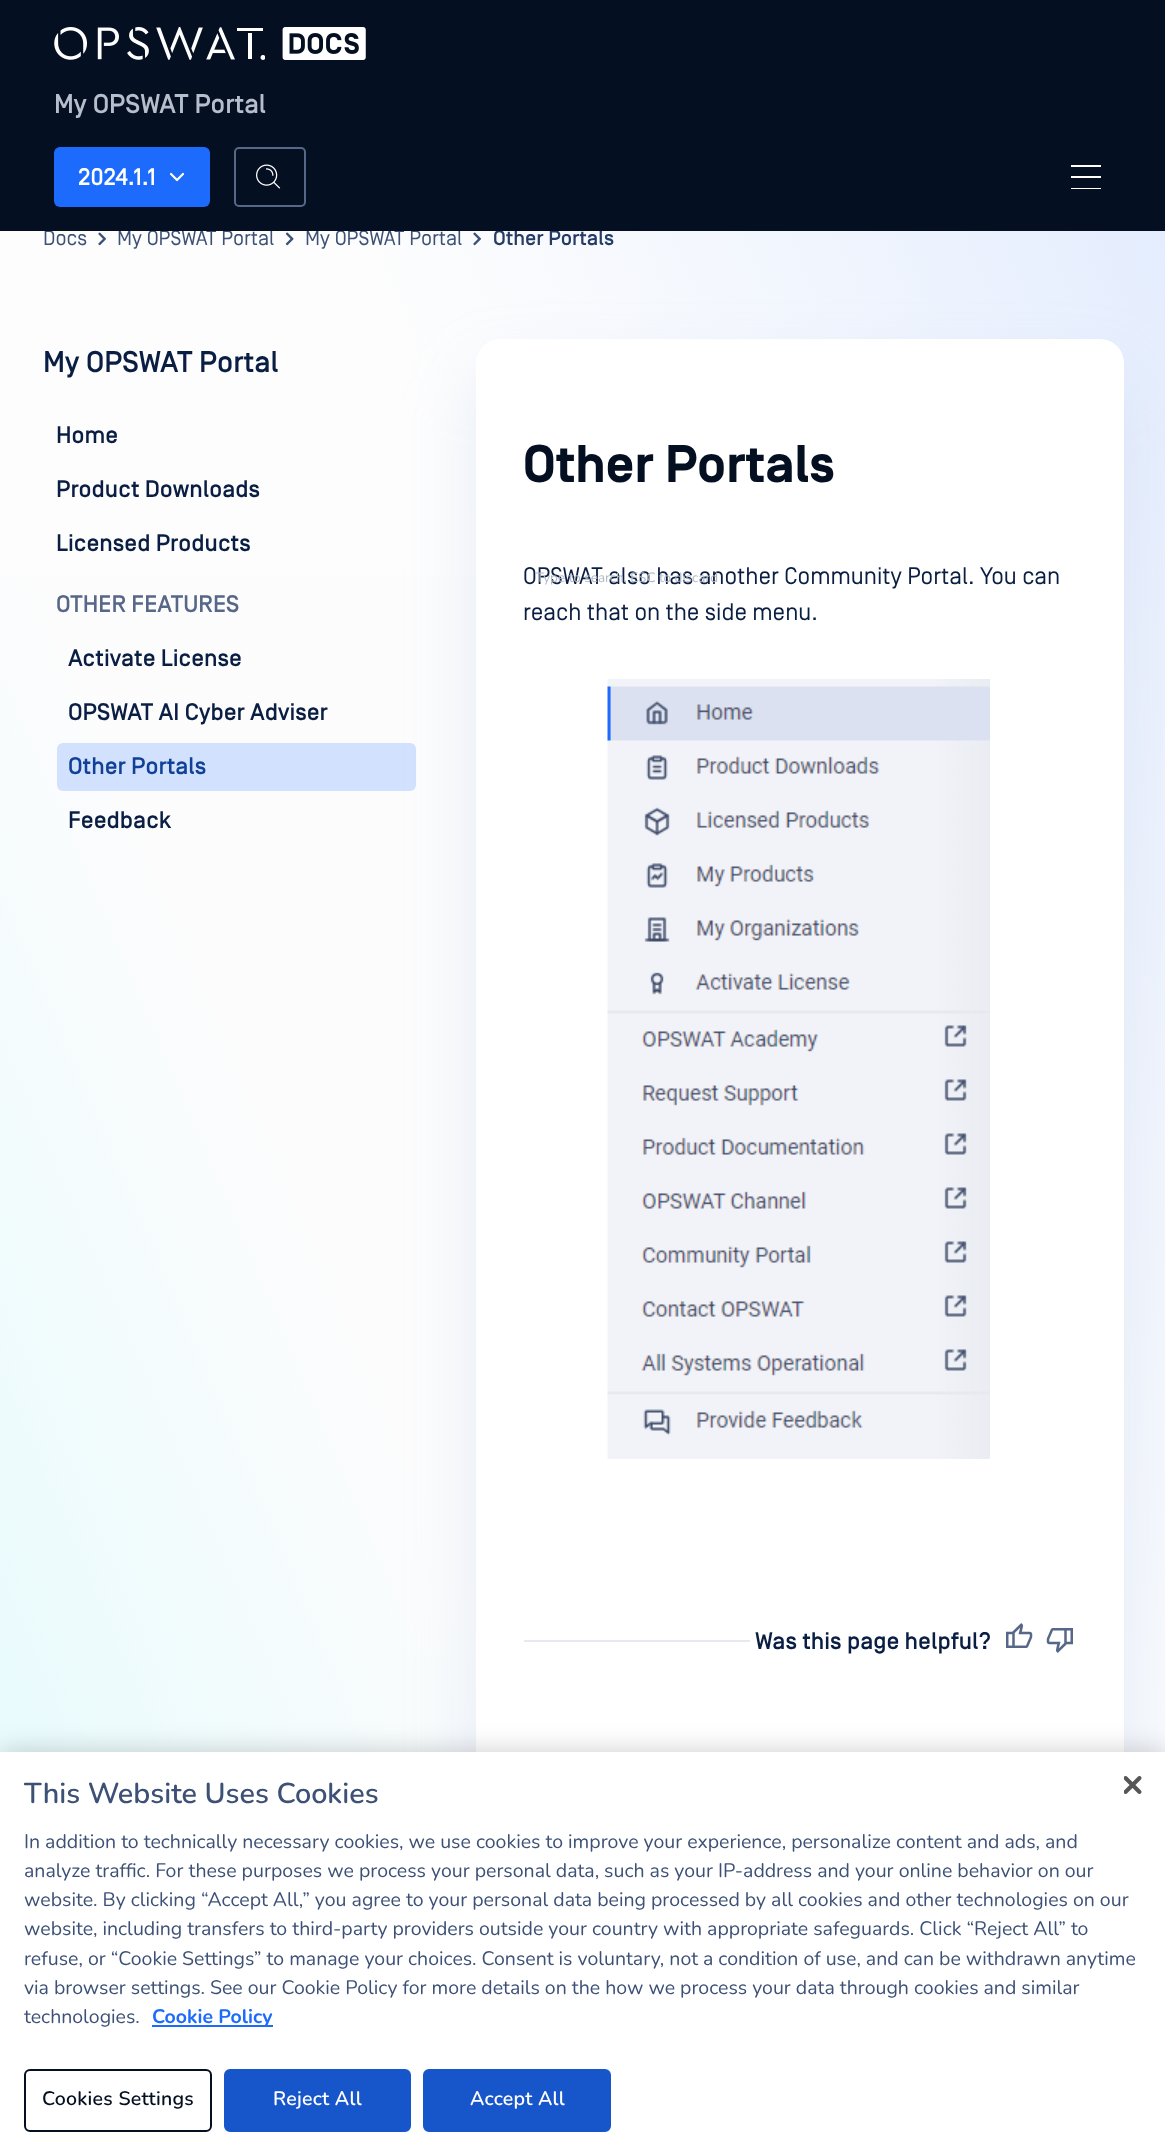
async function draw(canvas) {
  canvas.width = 1165
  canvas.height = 2155
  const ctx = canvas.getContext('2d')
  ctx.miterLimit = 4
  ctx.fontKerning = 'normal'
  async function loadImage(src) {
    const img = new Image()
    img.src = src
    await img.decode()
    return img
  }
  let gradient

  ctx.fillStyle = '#fff'
  ctx.fillRect(0, 0, 1165, 2155)
  gradient = ctx.createLinearGradient(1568, 897, -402, 1740)
  gradient.addColorStop(0.6, '#fefefe')
  gradient.addColorStop(1, '#d1fbfe')
  ctx.fillStyle = gradient
  ctx.fillRect(0, 575, 504, 1177)
  gradient = ctx.createLinearGradient(-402, 1740, 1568, 897)
  gradient.addColorStop(0.6, '#f6f7f940')
  gradient.addColorStop(1, '#a9c6fd5e')
  ctx.fillStyle = gradient
  ctx.fillRect(0, 231, 1165, 1521)
  ctx.font = '21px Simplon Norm'
  ctx.fillStyle = '#3d5176'
  ctx.fillText('Docs', 43, 245)
  ctx.fillText('My OPSWAT Portal', 117, 245)
  ctx.fillText('My OPSWAT Portal', 305, 245)
  ctx.font = '500 21px Simplon Norm'
  ctx.fillStyle = '#253c65'
  ctx.fillText('Other Portals', 493, 245)
  ctx.fillStyle = '#050f22'
  ctx.fillRect(0, 0, 1165, 231)
  ctx.drawImage(await loadImage('image0.png'), 54, 27, 312, 33)
  ctx.font = '500 27px Simplon Norm'
  ctx.fillStyle = '#b6becc'
  ctx.fillText('My OPSWAT Portal', 54, 113)
  ctx.fillStyle = '#1d6bfc'
  ctx.beginPath()
  ctx.roundRect(54, 147, 156, 60, 6)
  ctx.fill()
  ctx.font = '500 24px Simplon Norm'
  ctx.fillStyle = '#fff'
  ctx.fillText('2024.1.1', 78, 185)
  ctx.beginPath()
  ctx.moveTo(171, 174)
  ctx.lineTo(177, 180)
  ctx.lineTo(183, 174)
  ctx.strokeStyle = '#fff'
  ctx.lineWidth = 2.2
  ctx.lineCap = 'round'
  ctx.lineJoin = 'round'
  ctx.stroke()
  ctx.beginPath()
  ctx.roundRect(235, 148, 70, 58, 4)
  ctx.strokeStyle = '#566787'
  ctx.lineWidth = 2
  ctx.lineJoin = 'miter'
  ctx.stroke()
  ctx.drawImage(await loadImage('image1.png'), 256, 164, 25, 25)
  ctx.fillRect(1071, 176, 30, 2)
  ctx.fillRect(1071, 165, 30, 2)
  ctx.fillRect(1071, 188, 30, 1)
  ctx.drawImage(await loadImage('image2.png'), 98, 232, 8, 14)
  ctx.drawImage(await loadImage('image3.png'), 285, 232, 9, 14)
  ctx.drawImage(await loadImage('image4.png'), 473, 232, 8, 14)
  ctx.font = '500 30px Simplon Norm'
  ctx.fillStyle = '#0a1e43'
  ctx.fillText('My OPSWAT Portal', 43, 372)
  ctx.font = '500 24px Simplon Norm'
  ctx.fillText('Home', 56, 443)
  ctx.fillText('Product Downloads', 56, 497)
  ctx.fillText('Licensed Products', 56, 551)
  ctx.fillStyle = '#566787'
  ctx.fillText('OTHER FEATURES', 56, 612)
  ctx.fillStyle = '#0a1e43'
  ctx.fillText('Activate License', 68, 666)
  ctx.fillText('OPSWAT AI Cyber Adviser', 68, 720)
  ctx.fillStyle = '#d2e1fe'
  ctx.beginPath()
  ctx.roundRect(57, 743, 359, 48, 6)
  ctx.fill()
  ctx.fillStyle = '#114097'
  ctx.fillText('Other Portals', 68, 774)
  ctx.fillStyle = '#0a1e43'
  ctx.fillText('Feedback', 68, 828)
  ctx.fillStyle = '#a9badb40'
  ctx.filter = 'blur(34px)'
  ctx.beginPath()
  ctx.roundRect(476, 375, 648, 1613, 24)
  ctx.fill()
  ctx.filter = 'none'
  ctx.fillStyle = '#fff'
  ctx.beginPath()
  ctx.roundRect(476, 339, 648, 1613, 24)
  ctx.fill()
  ctx.font = 'bold 53px Simplon Norm'
  ctx.fillStyle = '#050f22'
  ctx.fillText('Other Portals', 523, 482)
  ctx.font = '24px Simplon Norm'
  ctx.fillStyle = '#0a1e43'
  ctx.fillText('OPSWAT also has another Community Portal. You can', 523, 584)
  ctx.fillText('reach that on the side menu.', 523, 620)
  ctx.drawImage(await loadImage('image5.png'), 607, 679, 383, 780)
  ctx.font = '13.5px Nunito'
  ctx.fillStyle = '#b4bac5'
  ctx.fillText('Type to search, ESC to discard', 536, 582)
  ctx.fillStyle = '#e7e9ee'
  ctx.fillRect(524, 1640, 226, 2)
  ctx.font = '500 24px Simplon Norm'
  ctx.fillStyle = '#0a1e43'
  ctx.fillText('Was this page helpful?', 755, 1649)
  ctx.drawImage(await loadImage('image6.png'), 1006, 1623, 27, 25)
  ctx.drawImage(await loadImage('image7.png'), 1046, 1628, 27, 25)
  ctx.fillStyle = '#00000033'
  ctx.filter = 'blur(13.5px)'
  ctx.beginPath()
  ctx.rect(0, 1752, 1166, 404)
  ctx.fill()
  ctx.filter = 'none'
  ctx.fillStyle = '#fff'
  ctx.fillRect(0, 1752, 1165, 403)
  ctx.drawImage(await loadImage('image8.png'), 1124, 1776, 18, 18)
  ctx.font = '600 28.75px Nunito'
  ctx.fillStyle = '#3d5176'
  ctx.fillText('This Website Uses Cookies', 24, 1803)
  ctx.font = '19.5px Nunito'
  ctx.fillText('In addition to technically necessary cookies, we use cookies to improve your experience, personalize content and ads, and', 24, 1848)
  ctx.fillText('analyze traffic. For these purposes we process your personal data, such as your IP-address and your online behavior on our', 24, 1877)
  ctx.fillText('website. By clicking “Accept All,” you agree to your personal data being processed by all cookies and other technologies on our', 24, 1906)
  ctx.fillText('website, including transfers to third-party providers outside your country with appropriate safeguards. Click “Reject All” to', 24, 1935)
  ctx.fillText('refuse, or “Cookie Settings” to manage your choices. Consent is voluntary, not a condition of use, and can be withdrawn anytime', 24, 1965)
  ctx.fillText('via browser settings. See our Cookie Policy for more details on the how we process your data through cookies and similar', 24, 1994)
  ctx.fillText('technologies.', 24, 2023)
  ctx.fillStyle = '#1d6bfc'
  ctx.fillRect(152, 2025, 121, 2)
  ctx.font = 'bold 19.5px Nunito'
  ctx.fillText('Cookie Policy', 152, 2023)
  ctx.beginPath()
  ctx.roundRect(25, 2070, 186, 61, 5)
  ctx.strokeStyle = '#050f22'
  ctx.stroke()
  ctx.letterSpacing = '0.25px'
  ctx.font = '600 19.5px Nunito'
  ctx.fillStyle = '#050f22'
  ctx.fillText('Cookies Settings', 42, 2105)
  ctx.fillStyle = '#1756ca'
  ctx.beginPath()
  ctx.roundRect(225, 2070, 185, 61, 5)
  ctx.fill()
  ctx.strokeStyle = '#1756ca'
  ctx.stroke()
  ctx.fillStyle = '#fff'
  ctx.fillText('Reject All', 273, 2105)
  ctx.fillStyle = '#1756ca'
  ctx.beginPath()
  ctx.roundRect(424, 2070, 186, 61, 5)
  ctx.fill()
  ctx.stroke()
  ctx.fillStyle = '#fff'
  ctx.fillText('Accept All', 470, 2105)
}

draw(document.querySelector('canvas'))
